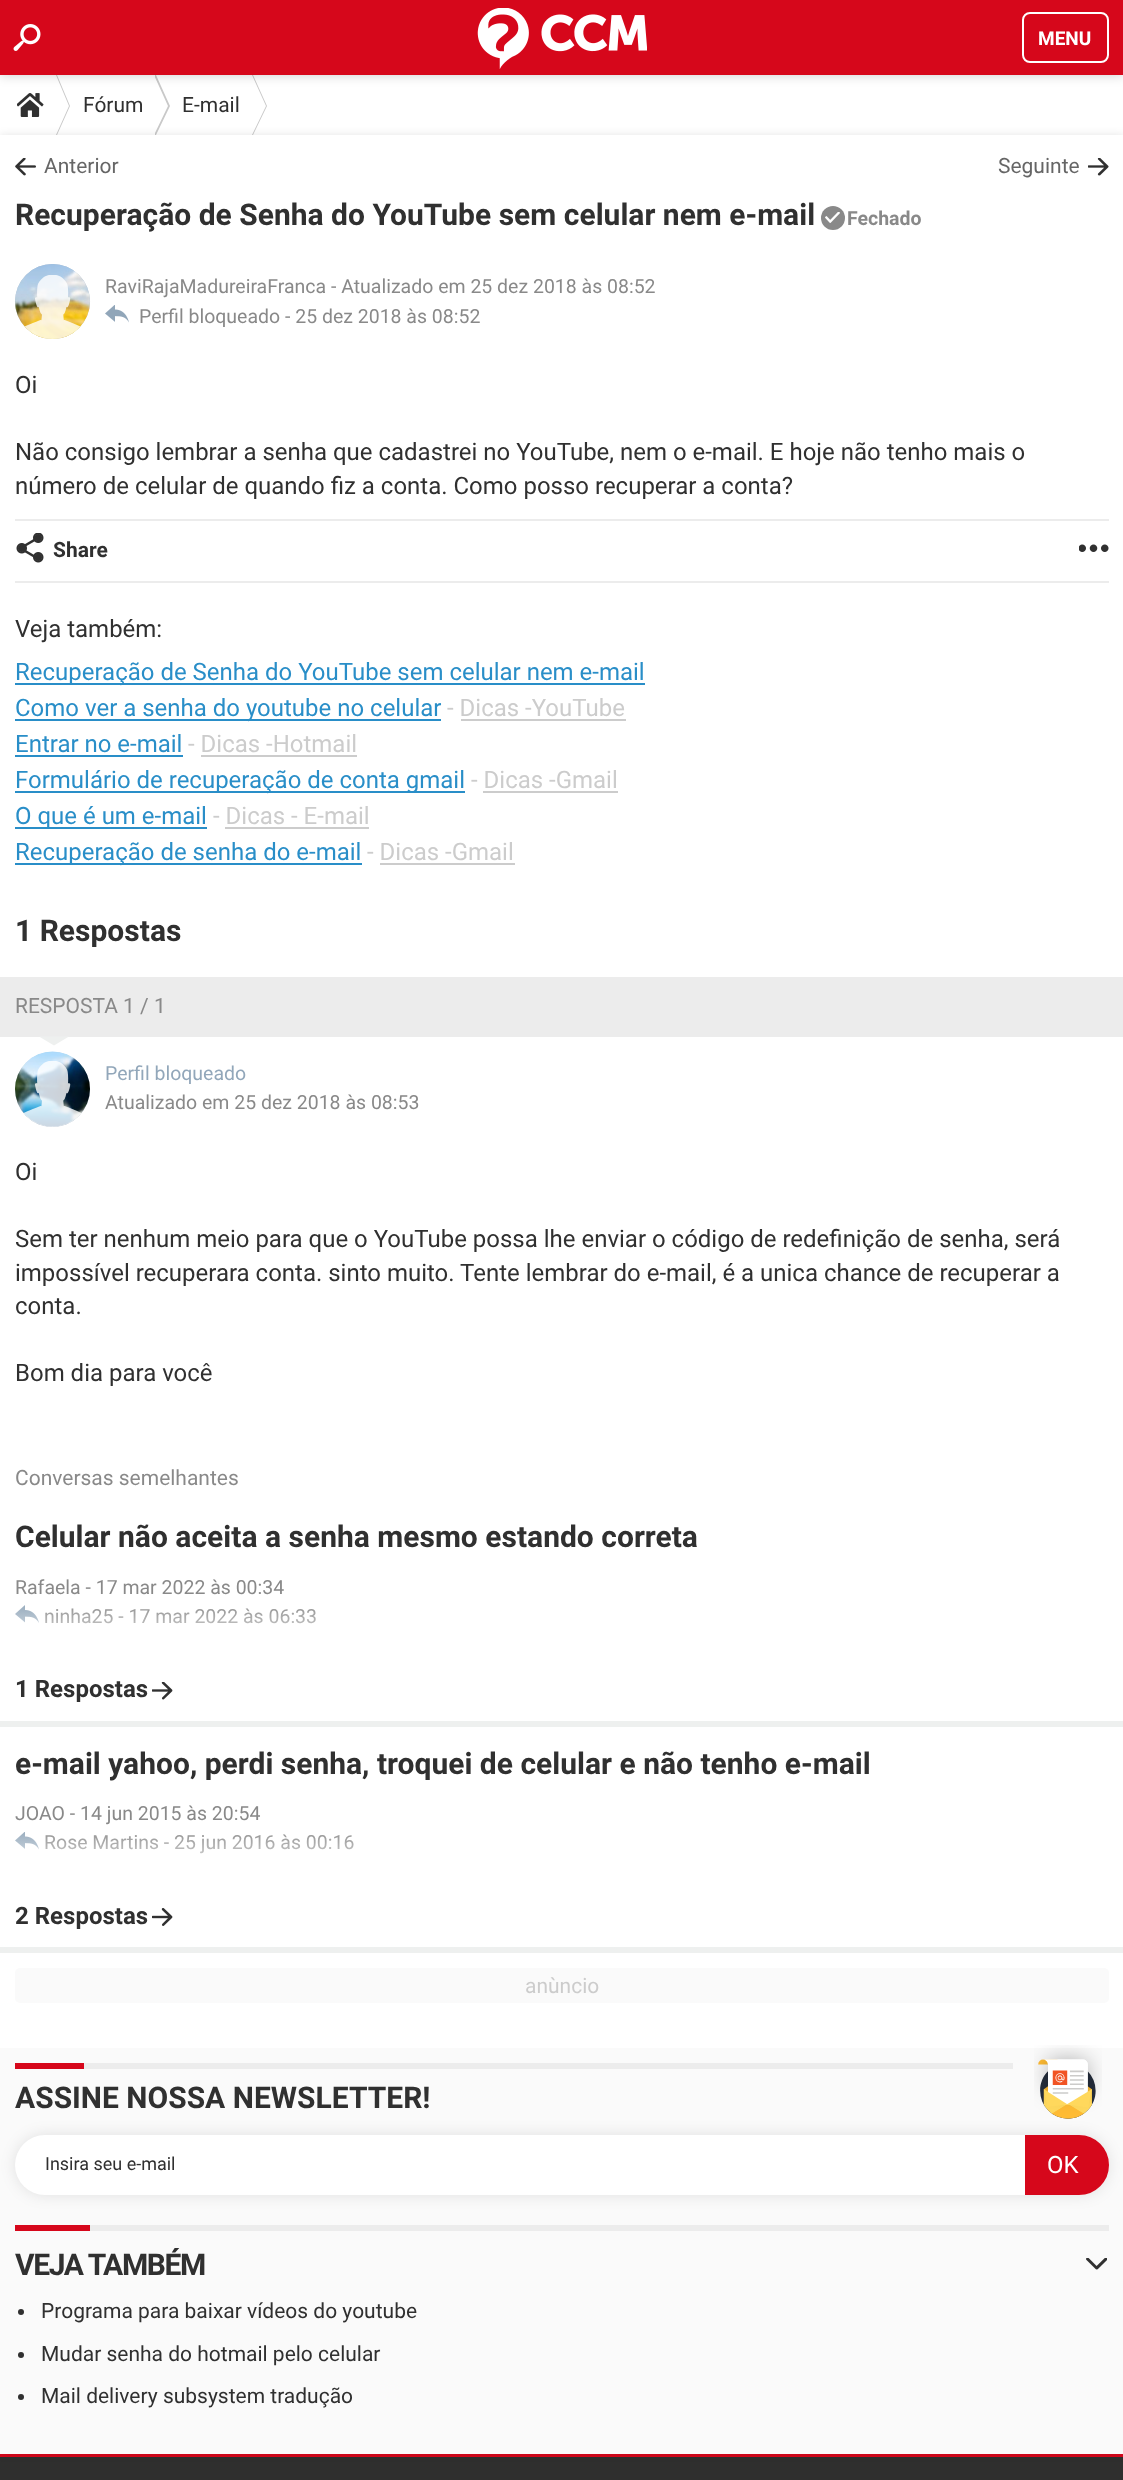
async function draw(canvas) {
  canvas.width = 1123
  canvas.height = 2480
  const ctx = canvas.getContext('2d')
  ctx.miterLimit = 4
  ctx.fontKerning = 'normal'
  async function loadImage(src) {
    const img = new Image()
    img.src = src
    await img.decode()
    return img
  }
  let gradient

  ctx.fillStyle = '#2f2f2e'
  ctx.fillRect(0, 0, 1123, 2480)
  ctx.fillStyle = '#fff'
  ctx.fillRect(0, 75, 1123, 60)
  ctx.drawImage(await loadImage('image2.png'), 17, 93, 27, 24)
  ctx.fillStyle = '#c9c9c9'
  ctx.beginPath()
  ctx.moveTo(56, 75)
  ctx.lineTo(57, 75)
  ctx.lineTo(70, 106)
  ctx.lineTo(57, 135)
  ctx.lineTo(56, 135)
  ctx.lineTo(69, 106)
  ctx.closePath()
  ctx.fill('evenodd')
  ctx.save()
  ctx.beginPath()
  ctx.rect(155, 75, 15, 60)
  ctx.clip()
  ctx.beginPath()
  ctx.moveTo(154, 75)
  ctx.lineTo(156, 75)
  ctx.lineTo(170, 106)
  ctx.lineTo(156, 135)
  ctx.lineTo(154, 135)
  ctx.lineTo(168, 106)
  ctx.closePath()
  ctx.fill('evenodd')
  ctx.restore()
  ctx.beginPath()
  ctx.moveTo(252, 75)
  ctx.lineTo(253, 75)
  ctx.lineTo(267, 106)
  ctx.lineTo(253, 135)
  ctx.lineTo(252, 135)
  ctx.lineTo(266, 106)
  ctx.closePath()
  ctx.fill('evenodd')
  ctx.fillStyle = '#00000033'
  ctx.filter = 'blur(6px)'
  ctx.beginPath()
  ctx.rect(0, 0, 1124, 75)
  ctx.fill()
  ctx.filter = 'none'
  ctx.fillStyle = '#d6071b'
  ctx.fillRect(0, 0, 1123, 75)
  ctx.drawImage(await loadImage('image0.png'), 13, 24, 28, 27)
  ctx.drawImage(await loadImage('image1.png'), 477, 8, 170, 61)
  ctx.beginPath()
  ctx.roundRect(1023, 13, 85, 49, 7)
  ctx.strokeStyle = '#fff'
  ctx.lineWidth = 2
  ctx.stroke()
  ctx.font = 'bold 19px Roboto'
  ctx.fillStyle = '#fff'
  ctx.fillText('MENU', 1038, 45)
  ctx.font = '21px Roboto'
  ctx.fillStyle = '#303030'
  ctx.fillText('Fórum', 83, 112)
  ctx.fillText('E-mail', 182, 112)
  ctx.fillStyle = '#d6071b'
  ctx.fillRect(0, 2454, 1123, 3)
  ctx.fillStyle = '#0000001a'
  ctx.filter = 'blur(4.5px)'
  ctx.beginPath()
  ctx.rect(0, 135, 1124, 2319)
  ctx.fill()
  ctx.filter = 'none'
  ctx.fillStyle = '#fff'
  ctx.fillRect(0, 135, 1123, 1913)
  ctx.drawImage(await loadImage('image3.png'), 15, 158, 21, 18)
  ctx.fillStyle = '#666'
  ctx.fillText('Anterior', 44, 173)
  ctx.fillText('Seguinte', 998, 173)
  ctx.drawImage(await loadImage('image4.png'), 1088, 158, 21, 18)
  ctx.font = 'bold 30px Roboto'
  ctx.fillStyle = '#303030'
  ctx.fillText('Recuperação de Senha do YouTube sem celular nem e-mail', 15, 225)
  ctx.fillStyle = '#898989'
  ctx.beginPath()
  ctx.arc(833, 218, 12, 0, 2 * Math.PI)
  ctx.fill()
  ctx.drawImage(await loadImage('image5.png'), 825, 212, 15, 11)
  ctx.font = 'bold 19.5px Roboto'
  ctx.fillText('Fechado', 847, 225)
  ctx.fillStyle = '#b0becb'
  ctx.beginPath()
  ctx.arc(52.5, 301.5, 37.5, 0, 2 * Math.PI)
  ctx.fill()
  ctx.drawImage(await loadImage('image6.png'), 15, 264, 75, 75)
  ctx.drawImage(await loadImage('image7.png'), 24, 275, 57, 64)
  ctx.font = '19.5px Roboto'
  ctx.fillStyle = '#898989'
  ctx.fillText('RaviRajaMadureiraFranca - Atualizado em 25 dez 2018 às 08:52', 105, 293)
  ctx.drawImage(await loadImage('image8.png'), 105, 305, 24, 18)
  ctx.fillText('Perfil bloqueado - 25 dez 2018 às 08:52', 139, 323)
  ctx.font = '24px Roboto'
  ctx.fillStyle = '#303030'
  ctx.fillText('Oi', 15, 393)
  ctx.fillText('Não consigo lembrar a senha que cadastrei no YouTube, nem o e-mail. E hoje não tenho mais o', 15, 460)
  ctx.fillText('número de celular de quando fiz a conta. Como posso recuperar a conta?', 15, 494)
  ctx.fillStyle = '#ececec'
  ctx.fillRect(15, 519, 1094, 2)
  ctx.fillRect(15, 581, 1094, 2)
  ctx.drawImage(await loadImage('image9.png'), 16, 533, 28, 30)
  ctx.font = 'bold 21px Roboto'
  ctx.fillStyle = '#303030'
  ctx.fillText('Share', 53, 557)
  ctx.drawImage(await loadImage('image10.png'), 1079, 544, 30, 8)
  ctx.font = '24px Roboto'
  ctx.fillText('Veja também:', 15, 637)
  ctx.fillStyle = '#298ec8'
  ctx.fillRect(15, 683, 630, 2)
  ctx.fillText('Recuperação de Senha do YouTube sem celular nem e-mail', 15, 680)
  ctx.fillRect(15, 719, 426, 2)
  ctx.fillText('Como ver a senha do youtube no celular', 15, 716)
  ctx.fillStyle = '#ccc'
  ctx.fillText('- Dicas -YouTube', 447, 716)
  ctx.fillRect(461, 719, 165, 2)
  ctx.fillStyle = '#298ec8'
  ctx.fillText('Entrar no e-mail', 15, 752)
  ctx.fillRect(15, 755, 168, 2)
  ctx.fillStyle = '#ccc'
  ctx.fillText('- Dicas -Hotmail', 188, 752)
  ctx.fillRect(201, 755, 156, 2)
  ctx.fillStyle = '#298ec8'
  ctx.fillRect(15, 791, 450, 2)
  ctx.fillText('Formulário de recuperação de conta gmail', 15, 788)
  ctx.fillStyle = '#ccc'
  ctx.fillText('- Dicas -Gmail', 471, 788)
  ctx.fillRect(483, 791, 135, 2)
  ctx.fillStyle = '#298ec8'
  ctx.fillRect(15, 827, 192, 2)
  ctx.fillText('O que é um e-mail', 15, 824)
  ctx.fillStyle = '#ccc'
  ctx.fillText('- Dicas - E-mail', 213, 824)
  ctx.fillRect(225, 827, 144, 2)
  ctx.fillStyle = '#298ec8'
  ctx.fillRect(15, 863, 347, 2)
  ctx.fillText('Recuperação de senha do e-mail', 15, 860)
  ctx.fillStyle = '#ccc'
  ctx.fillText('- Dicas -Gmail', 367, 860)
  ctx.fillRect(380, 863, 135, 2)
  ctx.font = 'bold 30px Roboto'
  ctx.fillStyle = '#303030'
  ctx.fillText('1 Respostas', 15, 941)
  ctx.fillStyle = '#ececec'
  ctx.fillRect(0, 977, 1123, 60)
  ctx.font = '21px Roboto'
  ctx.fillStyle = '#898989'
  ctx.fillText('RESPOSTA 1 / 1', 15, 1013)
  ctx.fillStyle = '#eef0ef'
  ctx.beginPath()
  ctx.moveTo(39, 1036.5)
  ctx.lineTo(69, 1036.5)
  ctx.lineTo(54, 1045.5)
  ctx.closePath()
  ctx.fill()
  ctx.fillStyle = '#b0becb'
  ctx.beginPath()
  ctx.arc(52.5, 1089.5, 37.5, 0, 2 * Math.PI)
  ctx.fill()
  ctx.drawImage(await loadImage('image11.png'), 15, 1051, 75, 76)
  ctx.drawImage(await loadImage('image12.png'), 23, 1061, 58, 66)
  ctx.font = '19.5px Roboto'
  ctx.fillStyle = '#92a7ba'
  ctx.fillText('Perfil bloqueado', 105, 1080)
  ctx.fillStyle = '#898989'
  ctx.fillText('Atualizado em 25 dez 2018 às 08:53', 105, 1109)
  ctx.font = '24px Roboto'
  ctx.fillStyle = '#303030'
  ctx.fillText('Oi', 15, 1180)
  ctx.fillText('Sem ter nenhum meio para que o YouTube possa lhe enviar o código de redefinição de senha, será', 15, 1247)
  ctx.fillText('impossível recuperara conta. sinto muito. Tente lembrar do e-mail, é a unica chance de recuperar a', 15, 1281)
  ctx.fillText('conta.', 15, 1314)
  ctx.fillText('Bom dia para você', 15, 1381)
  ctx.font = '21px Roboto'
  ctx.fillStyle = '#898989'
  ctx.fillText('Conversas semelhantes', 15, 1485)
  ctx.fillStyle = '#eef0ef'
  ctx.fillRect(0, 1721, 1123, 6)
  ctx.font = 'bold 30px Roboto'
  ctx.fillStyle = '#303030'
  ctx.fillText('Celular não aceita a senha mesmo estando correta', 15, 1547)
  ctx.font = '19.5px Roboto'
  ctx.fillStyle = '#898989'
  ctx.fillText('Rafaela - 17 mar 2022 às 00:34', 15, 1594)
  ctx.drawImage(await loadImage('image13.png'), 15, 1605, 24, 18)
  ctx.fillText('ninha25 - 17 mar 2022 às 06:33', 44, 1623)
  gradient = ctx.createLinearGradient(562, 1601, 562, 1721)
  gradient.addColorStop(0, '#ffffff00')
  gradient.addColorStop(0.45, '#fff')
  ctx.fillStyle = gradient
  ctx.fillRect(15, 1605, 301, 19)
  ctx.font = 'bold 24px Roboto'
  ctx.fillStyle = '#303030'
  ctx.fillText('1 Respostas', 15, 1697)
  ctx.drawImage(await loadImage('image14.png'), 152, 1682, 21, 18)
  ctx.fillStyle = '#eef0ef'
  ctx.fillRect(0, 1947, 1123, 6)
  ctx.font = 'bold 30px Roboto'
  ctx.fillStyle = '#303030'
  ctx.fillText('e-mail yahoo, perdi senha, troquei de celular e não tenho e-mail', 15, 1774)
  ctx.font = '19.5px Roboto'
  ctx.fillStyle = '#898989'
  ctx.fillText('JOAO - 14 jun 2015 às 20:54', 15, 1820)
  ctx.drawImage(await loadImage('image8.png'), 15, 1832, 24, 18)
  ctx.fillText('Rose Martins - 25 jun 2016 às 00:16', 44, 1849)
  gradient = ctx.createLinearGradient(562, 1827, 562, 1947)
  gradient.addColorStop(0, '#ffffff00')
  gradient.addColorStop(0.45, '#fff')
  ctx.fillStyle = gradient
  ctx.fillRect(15, 1832, 339, 22)
  ctx.font = 'bold 24px Roboto'
  ctx.fillStyle = '#303030'
  ctx.fillText('2 Respostas', 15, 1924)
  ctx.drawImage(await loadImage('image15.png'), 152, 1908, 21, 18)
  ctx.fillStyle = '#fafafa'
  ctx.beginPath()
  ctx.roundRect(15, 1968, 1094, 35, 5)
  ctx.fill()
  ctx.font = '21px Roboto'
  ctx.fillStyle = '#ccc'
  ctx.fillText('anùncio', 525, 1993)
  ctx.fillStyle = '#fafafa'
  ctx.fillRect(0, 2048, 1123, 406)
  ctx.fillStyle = '#ececec'
  ctx.fillRect(84, 2063, 929, 6)
  ctx.fillStyle = '#d6071b'
  ctx.fillRect(15, 2063, 69, 6)
  ctx.font = 'bold 30px Roboto'
  ctx.fillStyle = '#303030'
  ctx.fillText('ASSINE NOSSA NEWSLETTER!', 15, 2108)
  ctx.drawImage(await loadImage('image16.png'), 1034, 2045, 68, 74)
  ctx.fillStyle = '#0000001a'
  ctx.filter = 'blur(7.5px)'
  ctx.beginPath()
  ctx.roundRect(15, 2135, 1094, 60, 30)
  ctx.fill()
  ctx.filter = 'none'
  ctx.fillStyle = '#fff'
  ctx.beginPath()
  ctx.roundRect(15, 2135, 1094, 60, 30)
  ctx.fill()
  ctx.font = '18px Roboto'
  ctx.fillStyle = '#303030'
  ctx.fillText('Insira seu e-mail', 45, 2170)
  ctx.fillStyle = '#d6071b'
  ctx.beginPath()
  ctx.roundRect(1026.5, 2136.5, 81, 57, [0, 28.5, 28.5, 0])
  ctx.fill()
  ctx.strokeStyle = '#d6071b'
  ctx.lineWidth = 3
  ctx.stroke()
  ctx.font = '24px Roboto'
  ctx.fillStyle = '#fff'
  ctx.fillText('OK', 1047, 2173)
  ctx.fillStyle = '#ececec'
  ctx.fillRect(90, 2225, 1019, 6)
  ctx.fillStyle = '#d6071b'
  ctx.fillRect(15, 2225, 75, 6)
  ctx.letterSpacing = '-1.4px'
  ctx.font = 'bold 30px Roboto'
  ctx.fillStyle = '#303030'
  ctx.fillText('VEJA TAMBÉM', 15, 2275)
  ctx.drawImage(await loadImage('image17.png'), 1086, 2258, 21, 12)
  ctx.beginPath()
  ctx.arc(21, 2312, 3, 0, 2 * Math.PI)
  ctx.fill()
  ctx.letterSpacing = '0px'
  ctx.font = '21px Roboto'
  ctx.fillText('Programa para baixar vídeos do youtube', 41, 2318)
  ctx.beginPath()
  ctx.arc(21, 2355, 3, 0, 2 * Math.PI)
  ctx.fill()
  ctx.fillText('Mudar senha do hotmail pelo celular', 41, 2361)
  ctx.beginPath()
  ctx.arc(21, 2397, 3, 0, 2 * Math.PI)
  ctx.fill()
  ctx.fillText('Mail delivery subsystem tradução', 41, 2403)
}

draw(document.querySelector('canvas'))
